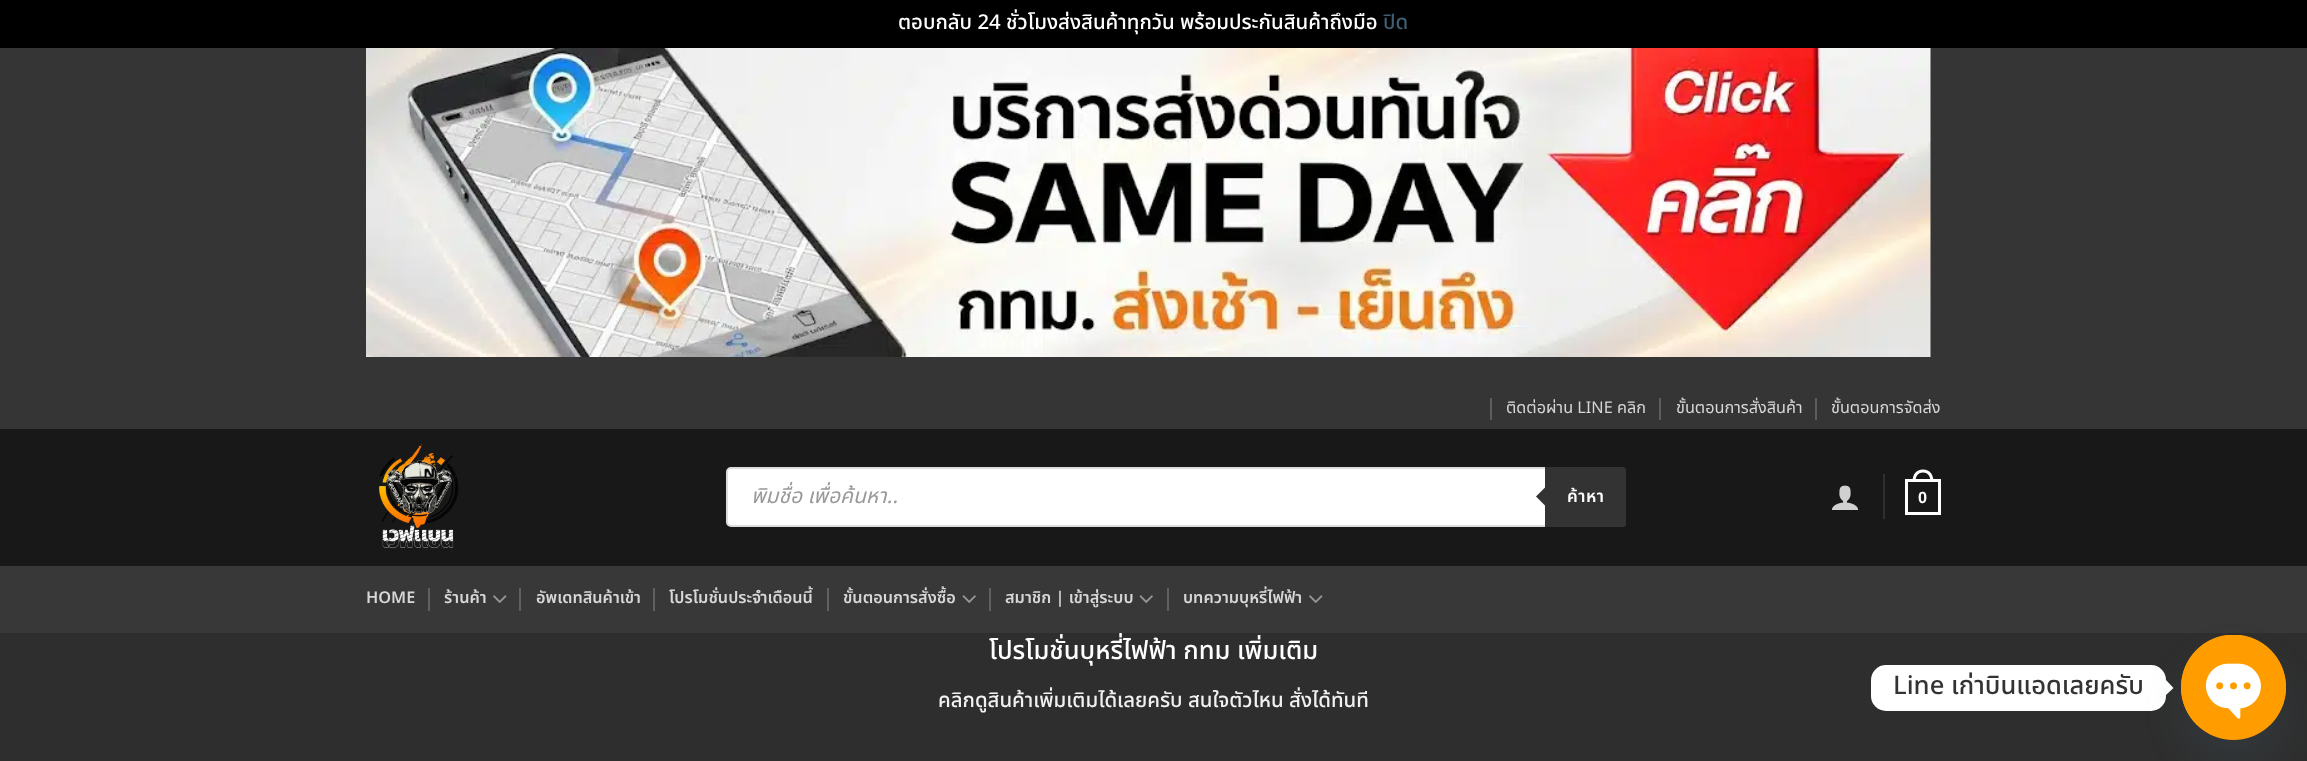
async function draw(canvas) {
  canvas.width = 2307
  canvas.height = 761
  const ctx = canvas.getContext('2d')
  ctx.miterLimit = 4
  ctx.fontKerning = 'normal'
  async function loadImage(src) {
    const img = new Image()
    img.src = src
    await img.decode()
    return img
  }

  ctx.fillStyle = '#000'
  ctx.fillRect(0, 0, 2307, 761)
  ctx.font = '500 20.4px Noto Sans Thai'
  ctx.fillStyle = '#fff'
  ctx.fillText('ตอบกลับ 24 ชั่วโมงส่งสินค้าทุกวัน พร้อมประกันสินค้าถึงมือ', 898, 29)
  ctx.fillStyle = '#3f5e73'
  ctx.fillText('ปิด', 1383, 29)
  ctx.fillStyle = '#2e2e2e'
  ctx.fillRect(0, 633, 2307, 128)
  ctx.fillStyle = '#353535'
  ctx.fillRect(0, 48, 2307, 381)
  ctx.drawImage(await loadImage('image0.png'), 366, 48, 1565, 309)
  ctx.fillStyle = '#5d5d5d'
  ctx.fillRect(1490, 398, 2, 22)
  ctx.font = '16.25px Noto Sans Thai'
  ctx.fillStyle = '#d7d7d7'
  ctx.fillText('ติดต่อผ่าน LINE คลิก', 1506, 413)
  ctx.fillStyle = '#5d5d5d'
  ctx.fillRect(1659, 398, 2, 22)
  ctx.fillStyle = '#d7d7d7'
  ctx.fillText('ขั้นตอนการสั่งสินค้า', 1676, 413)
  ctx.fillStyle = '#5d5d5d'
  ctx.fillRect(1815, 398, 2, 22)
  ctx.fillStyle = '#d7d7d7'
  ctx.fillText('ขั้นตอนการจัดส่ง', 1831, 413)
  ctx.fillStyle = '#181818'
  ctx.fillRect(0, 429, 2307, 137)
  ctx.drawImage(await loadImage('image1.png'), 378, 444, 81, 105)
  ctx.fillStyle = '#fff'
  ctx.beginPath()
  ctx.roundRect(727, 468, 898, 58, 4)
  ctx.fill()
  ctx.strokeStyle = '#ddd'
  ctx.lineWidth = 2
  ctx.stroke()
  ctx.save()
  ctx.beginPath()
  ctx.rect(750, 482, 852, 31)
  ctx.clip()
  ctx.font = 'italic 21px Noto Sans Thai'
  ctx.fillStyle = '#999'
  ctx.fillText('พิมชื่อ เพื่อค้นหา..', 751, 503)
  ctx.restore()
  ctx.fillStyle = '#333'
  ctx.beginPath()
  ctx.roundRect(1545, 467, 81, 60, [0, 3, 3, 0])
  ctx.fill()
  ctx.beginPath()
  ctx.moveTo(1548, 484.5)
  ctx.lineTo(1548, 508.5)
  ctx.lineTo(1536, 496.5)
  ctx.closePath()
  ctx.fill()
  ctx.letterSpacing = '0.5px'
  ctx.font = '600 17px Noto Sans Thai'
  ctx.fillStyle = '#fff'
  ctx.fillText('ค้าหา', 1567, 502)
  ctx.drawImage(await loadImage('image2.png'), 1831, 485, 28, 25)
  ctx.fillStyle = '#2f2f2f'
  ctx.fillRect(1883, 474, 2, 45)
  ctx.strokeStyle = '#fff'
  ctx.lineWidth = 3
  ctx.strokeRect(1906.5, 480.5, 33, 33)
  ctx.fillStyle = '#fff'
  ctx.beginPath()
  ctx.moveTo(1923, 469.5)
  ctx.bezierCurveTo(1930, 469.5, 1933.5, 475, 1933.5, 481.5)
  ctx.lineTo(1912.5, 481.5)
  ctx.bezierCurveTo(1912.5, 475, 1916, 469.5, 1923, 469.5)
  ctx.closePath()
  ctx.moveTo(1923, 472.5)
  ctx.bezierCurveTo(1928.5, 472.5, 1930.5, 477, 1930.5, 481.5)
  ctx.lineTo(1915.5, 481.5)
  ctx.bezierCurveTo(1915.5, 477, 1917.5, 472.5, 1923, 472.5)
  ctx.closePath()
  ctx.fill('evenodd')
  ctx.letterSpacing = '0px'
  ctx.font = 'bold 16.25px Liberation Sans'
  ctx.fillText('0', 1918, 503)
  ctx.fillStyle = '#383838'
  ctx.fillRect(0, 566, 2307, 67)
  ctx.font = '600 16.25px Noto Sans Thai'
  ctx.fillStyle = '#d7d7d7'
  ctx.fillText('HOME', 366, 603)
  ctx.fillStyle = '#606060'
  ctx.fillRect(428, 588, 2, 23)
  ctx.fillStyle = '#d7d7d7'
  ctx.fillText('ร้านค้า', 444, 603)
  ctx.drawImage(await loadImage('image3.png'), 493, 595, 14, 8)
  ctx.fillStyle = '#606060'
  ctx.fillRect(519, 588, 2, 23)
  ctx.fillStyle = '#d7d7d7'
  ctx.fillText('อัพเดทสินค้าเข้า', 536, 603)
  ctx.fillStyle = '#606060'
  ctx.fillRect(653, 588, 2, 23)
  ctx.fillStyle = '#d7d7d7'
  ctx.fillText('โปรโมชั่นประจำเดือนนี้', 669, 603)
  ctx.fillStyle = '#606060'
  ctx.fillRect(827, 588, 2, 23)
  ctx.fillStyle = '#d7d7d7'
  ctx.fillText('ขั้นตอนการสั่งซื้อ', 843, 603)
  ctx.drawImage(await loadImage('image4.png'), 962, 595, 14, 8)
  ctx.fillStyle = '#606060'
  ctx.fillRect(989, 588, 2, 23)
  ctx.fillStyle = '#d7d7d7'
  ctx.fillText('สมาชิก | เข้าสู่ระบบ', 1005, 603)
  ctx.drawImage(await loadImage('image4.png'), 1139, 595, 14, 8)
  ctx.fillStyle = '#606060'
  ctx.fillRect(1167, 588, 2, 23)
  ctx.fillStyle = '#d7d7d7'
  ctx.fillText('บทความบุหรี่ไฟฟ้า', 1183, 603)
  ctx.drawImage(await loadImage('image3.png'), 1309, 595, 14, 8)
  ctx.font = '500 25.5px Noto Sans Thai'
  ctx.fillStyle = '#fff'
  ctx.fillText('โปรโมชั่นบุหรี่ไฟฟ้า กทม เพิ่มเติม', 989, 659)
  ctx.font = '500 20.4px Noto Sans Thai'
  ctx.fillStyle = '#f1f1f1'
  ctx.fillText('คลิกดูสินค้าเพิ่มเติมได้เลยครับ สนใจตัวไหน สั่งได้ทันที', 938, 707)
  ctx.fillStyle = '#fff'
  ctx.beginPath()
  ctx.roundRect(1871, 665, 295, 46, 15)
  ctx.fill()
  ctx.font = '500 25.5px Noto Sans Thai'
  ctx.fillStyle = '#333'
  ctx.fillText('Line เก่าบินแอดเลยครับ', 1893, 694)
  ctx.fillStyle = '#fff'
  ctx.beginPath()
  ctx.moveTo(2166, 695)
  ctx.lineTo(2166, 680)
  ctx.lineTo(2173.5, 688)
  ctx.closePath()
  ctx.fill()
  ctx.fillStyle = '#49687e29'
  ctx.filter = 'blur(18px)'
  ctx.beginPath()
  ctx.roundRect(2181, 659, 105, 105, 52.5)
  ctx.fill()
  ctx.filter = 'none'
  ctx.fillStyle = '#ff9d00'
  ctx.beginPath()
  ctx.arc(2233.5, 687.5, 52.5, 0, 2 * Math.PI)
  ctx.fill()
  ctx.drawImage(await loadImage('image5.png'), 2181, 635, 105, 101)
}

draw(document.querySelector('canvas'))
